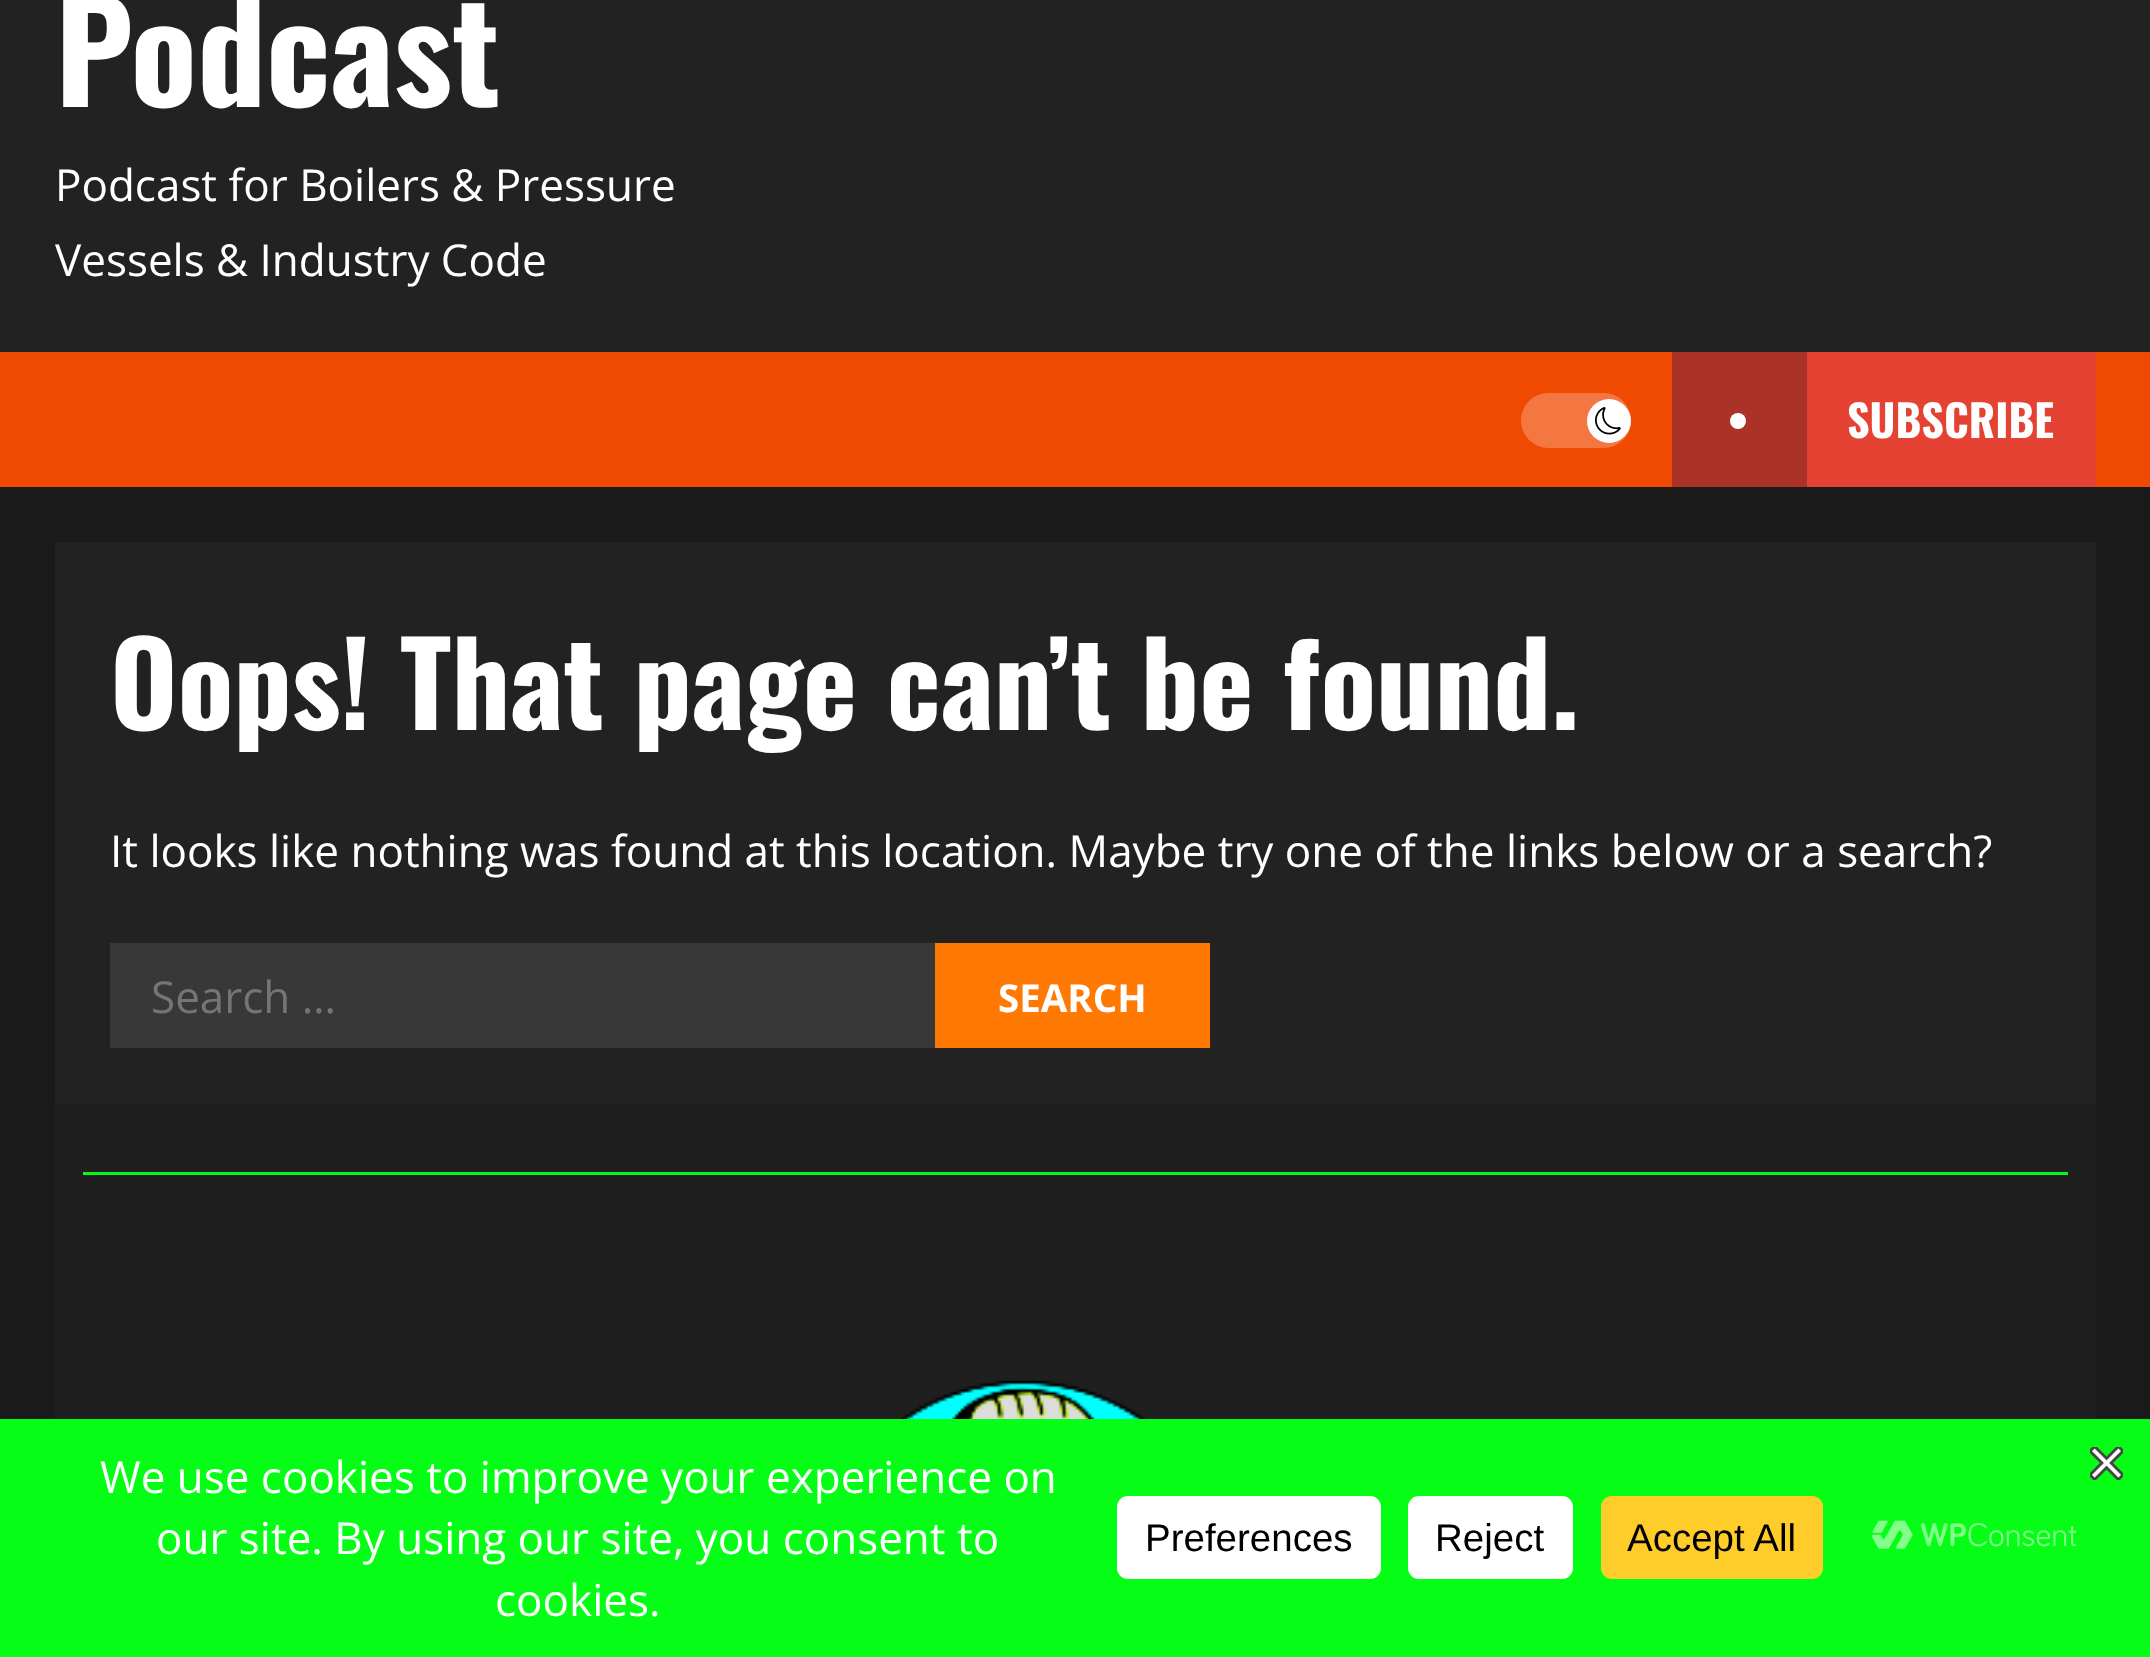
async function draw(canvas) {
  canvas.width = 2150
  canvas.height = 1657
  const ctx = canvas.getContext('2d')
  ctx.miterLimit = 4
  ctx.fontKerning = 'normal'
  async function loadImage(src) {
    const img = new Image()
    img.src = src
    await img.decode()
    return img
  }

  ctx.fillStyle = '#1a1a1a'
  ctx.fillRect(0, 0, 2150, 1657)
  ctx.fillStyle = '#222'
  ctx.fillRect(0, 0, 2150, 352)
  ctx.font = 'bold 137.5px Oswald'
  ctx.fillStyle = '#fff'
  ctx.fillText('Podcast', 55, 107)
  ctx.font = '44px Open Sans'
  ctx.fillText('Podcast for Boilers & Pressure', 55, 201)
  ctx.fillText('Vessels & Industry Code', 55, 276)
  ctx.fillStyle = '#f04901'
  ctx.fillRect(0, 352, 2150, 135)
  ctx.fillStyle = '#f47741'
  ctx.beginPath()
  ctx.roundRect(1521, 393, 110, 55, 27.5)
  ctx.fill()
  ctx.fillStyle = '#fff'
  ctx.beginPath()
  ctx.arc(1609, 421, 22, 0, 2 * Math.PI)
  ctx.fill()
  ctx.drawImage(await loadImage('image0.png'), 1595, 407, 26, 28)
  ctx.fillStyle = '#e44233'
  ctx.fillRect(1807, 352, 289, 135)
  ctx.fillStyle = '#ab3226'
  ctx.fillRect(1672, 352, 135, 135)
  ctx.fillStyle = '#fff'
  ctx.beginPath()
  ctx.arc(1738, 421, 8, 0, 2 * Math.PI)
  ctx.fill()
  ctx.font = 'bold 44px Oswald'
  ctx.fillText('SUBSCRIBE', 1847, 438)
  ctx.fillStyle = '#222'
  ctx.fillRect(55, 542, 2041, 561)
  ctx.font = 'bold 115.5px Oswald'
  ctx.fillStyle = '#fff'
  ctx.fillText('Oops! That page can’t be found.', 110, 730)
  ctx.font = '44px Open Sans'
  ctx.fillText('It looks like nothing was found at this location. Maybe try one of the links below or a search?', 110, 867)
  ctx.fillStyle = '#383838'
  ctx.fillRect(110, 943, 825, 105)
  ctx.fillStyle = '#757575'
  ctx.fillText('Search …', 151, 1013)
  ctx.fillStyle = '#ff7903'
  ctx.fillRect(935, 943, 275, 105)
  ctx.font = 'bold 38.5px Open Sans'
  ctx.fillStyle = '#fff'
  ctx.fillText('SEARCH', 998, 1012)
  ctx.fillStyle = '#1f1f1f'
  ctx.fillRect(55, 1103, 2041, 316)
  ctx.fillStyle = '#05fa17'
  ctx.fillRect(83, 1172, 1985, 3)
  ctx.drawImage(await loadImage('image1.png'), 900, 1380, 246, 39)
  ctx.fillStyle = '#06fd15'
  ctx.fillRect(0, 1419, 2150, 238)
  ctx.font = '44px Open Sans'
  ctx.fillStyle = '#fff'
  ctx.fillText('We use cookies to improve your experience on', 100, 1493)
  ctx.fillText('our site. By using our site, you consent to', 156, 1554)
  ctx.fillText('cookies.', 495, 1616)
  ctx.beginPath()
  ctx.roundRect(1117, 1496, 264, 83, 11)
  ctx.fill()
  ctx.font = '38.5px Liberation Sans'
  ctx.fillStyle = '#000'
  ctx.fillText('Preferences', 1145, 1551)
  ctx.fillStyle = '#fff'
  ctx.beginPath()
  ctx.roundRect(1408, 1496, 165, 83, 11)
  ctx.fill()
  ctx.fillStyle = '#000'
  ctx.fillText('Reject', 1435, 1551)
  ctx.fillStyle = '#ffcd2a'
  ctx.beginPath()
  ctx.roundRect(1601, 1496, 222, 83, 11)
  ctx.fill()
  ctx.fillStyle = '#000'
  ctx.fillText('Accept All', 1627, 1551)
  ctx.drawImage(await loadImage('image2.png'), 1871, 1520, 206, 29)
  ctx.drawImage(await loadImage('image3.png'), 2090, 1447, 33, 33)
}

draw(document.querySelector('canvas'))
